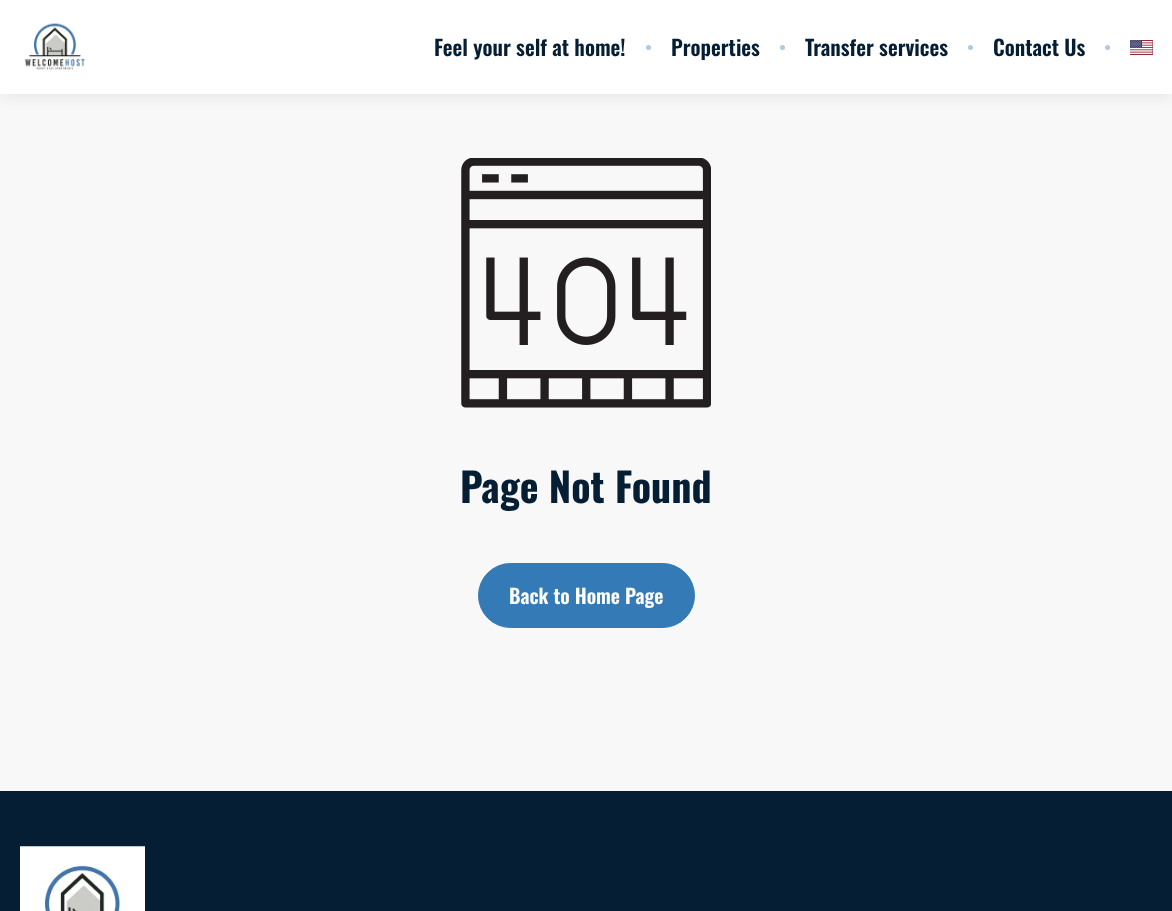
async function draw(canvas) {
  canvas.width = 1172
  canvas.height = 911
  const ctx = canvas.getContext('2d')
  ctx.miterLimit = 4
  ctx.fontKerning = 'normal'
  async function loadImage(src) {
    const img = new Image()
    img.src = src
    await img.decode()
    return img
  }

  ctx.fillStyle = '#f8f8f8'
  ctx.fillRect(0, 0, 1172, 911)
  ctx.fillStyle = '#00000014'
  ctx.filter = 'blur(7.5px)'
  ctx.beginPath()
  ctx.rect(0, 3, 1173, 93)
  ctx.fill()
  ctx.filter = 'none'
  ctx.fillStyle = '#fff'
  ctx.fillRect(0, 0, 1172, 94)
  ctx.drawImage(await loadImage('image0.png'), 24, 23, 61, 47)
  ctx.font = '600 21.25px Oswald'
  ctx.fillStyle = '#051e33'
  ctx.fillText('Feel your self at home!', 434, 56)
  ctx.fillStyle = '#adcae2'
  ctx.beginPath()
  ctx.arc(648.5, 47.5, 2.5, 0, 2 * Math.PI)
  ctx.fill()
  ctx.fillStyle = '#051e33'
  ctx.fillText('Properties', 671, 56)
  ctx.fillStyle = '#adcae2'
  ctx.beginPath()
  ctx.arc(782.5, 47.5, 2.5, 0, 2 * Math.PI)
  ctx.fill()
  ctx.fillStyle = '#051e33'
  ctx.fillText('Transfer services', 805, 56)
  ctx.fillStyle = '#adcae2'
  ctx.beginPath()
  ctx.arc(970.5, 47.5, 2.5, 0, 2 * Math.PI)
  ctx.fill()
  ctx.fillStyle = '#051e33'
  ctx.fillText('Contact Us', 993, 56)
  ctx.fillStyle = '#adcae2'
  ctx.beginPath()
  ctx.arc(1107.5, 47.5, 2.5, 0, 2 * Math.PI)
  ctx.fill()
  ctx.drawImage(await loadImage('image1.png'), 1130, 40, 23, 15)
  ctx.drawImage(await loadImage('image2.png'), 461, 158, 250, 250)
  ctx.font = 'bold 40px Oswald'
  ctx.fillStyle = '#051e33'
  ctx.fillText('Page Not Found', 460, 503)
  ctx.fillStyle = '#337ab7'
  ctx.beginPath()
  ctx.roundRect(478.5, 563.5, 216, 64, 32)
  ctx.fill()
  ctx.strokeStyle = '#337ab7'
  ctx.stroke()
  ctx.font = '600 20px Oswald'
  ctx.fillStyle = '#fff'
  ctx.fillText('Back to Home Page', 509, 604)
  ctx.fillStyle = '#051e33'
  ctx.fillRect(0, 791, 1172, 120)
  ctx.drawImage(await loadImage('image3.png'), 20, 846, 125, 65)
}

draw(document.querySelector('canvas'))
